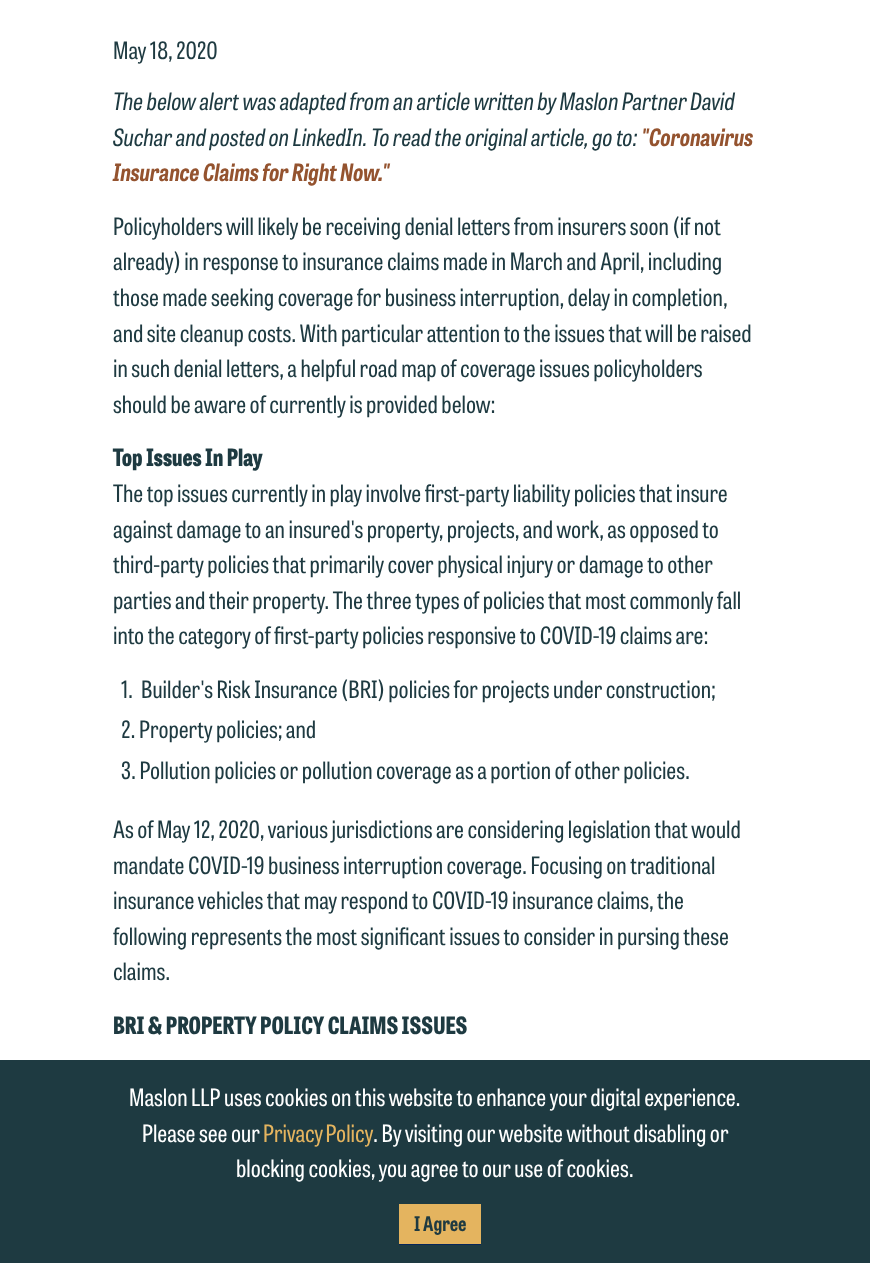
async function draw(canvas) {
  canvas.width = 870
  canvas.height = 1263
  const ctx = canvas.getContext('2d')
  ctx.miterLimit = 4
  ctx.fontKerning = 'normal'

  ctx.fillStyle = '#fff'
  ctx.fillRect(0, 0, 870, 1263)
  ctx.font = '23.75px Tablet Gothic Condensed'
  ctx.fillStyle = '#1e3a41'
  ctx.fillText('May 18, 2020', 113, 59)
  ctx.font = 'italic 23.75px Tablet Gothic Condensed'
  ctx.fillText('The below alert was adapted from an article written by Maslon Partner David', 113, 110)
  ctx.fillText('Suchar and posted on LinkedIn. To read the original article, go to:', 113, 146)
  ctx.font = 'italic bold 23.75px Tablet Gothic Condensed'
  ctx.fillStyle = '#94532f'
  ctx.fillText('"Coronavirus', 641, 146)
  ctx.fillText('Insurance Claims for Right Now."', 113, 181)
  ctx.font = '23.75px Tablet Gothic Condensed'
  ctx.fillStyle = '#1e3a41'
  ctx.fillText('Policyholders will likely be receiving denial letters from insurers soon (if not', 113, 235)
  ctx.fillText('already) in response to insurance claims made in March and April, including', 113, 270)
  ctx.fillText('those made seeking coverage for business interruption, delay in completion,', 113, 306)
  ctx.fillText('and site cleanup costs. With particular attention to the issues that will be raised', 113, 342)
  ctx.fillText('in such denial letters, a helpful road map of coverage issues policyholders', 113, 377)
  ctx.fillText('should be aware of currently is provided below:', 113, 413)
  ctx.font = '800 23.75px Tablet Gothic Condensed'
  ctx.fillText('Top Issues In Play', 113, 466)
  ctx.font = '23.75px Tablet Gothic Condensed'
  ctx.fillText('The top issues currently in play involve first-party liability policies that insure', 113, 502)
  ctx.fillText('against damage to an insured\'s property, projects, and work, as opposed to', 113, 538)
  ctx.fillText('third-party policies that primarily cover physical injury or damage to other', 113, 573)
  ctx.fillText('parties and their property. The three types of policies that most commonly fall', 113, 609)
  ctx.fillText('into the category of first-party policies responsive to COVID-19 claims are:', 113, 644)
  ctx.fillText('1.', 121, 698)
  ctx.fillText('Builder\'s Risk Insurance (BRI) policies for projects under construction;', 141, 698)
  ctx.fillText('2. Property policies; and', 121, 738)
  ctx.fillText('3. Pollution policies or pollution coverage as a portion of other policies.', 121, 779)
  ctx.fillText('As of May 12, 2020, various jurisdictions are considering legislation that would', 113, 838)
  ctx.fillText('mandate COVID-19 business interruption coverage. Focusing on traditional', 113, 874)
  ctx.fillText('insurance vehicles that may respond to COVID-19 insurance claims, the', 113, 909)
  ctx.fillText('following represents the most significant issues to consider in pursing these', 113, 945)
  ctx.fillText('claims.', 113, 980)
  ctx.font = '800 23.75px Tablet Gothic Condensed'
  ctx.fillText('BRI & PROPERTY POLICY CLAIMS ISSUES', 113, 1034)
  ctx.fillRect(0, 1060, 870, 203)
  ctx.font = '23.75px Tablet Gothic Condensed'
  ctx.fillStyle = '#fff'
  ctx.fillText('Maslon LLP uses cookies on this website to enhance your digital experience.', 129, 1106)
  ctx.fillText('Please see our', 142, 1142)
  ctx.wordSpacing = '-1px'
  ctx.fillStyle = '#e4b45f'
  ctx.fillText('Privacy Policy', 263, 1142)
  ctx.wordSpacing = '0px'
  ctx.fillStyle = '#fff'
  ctx.fillText('. By visiting our website without disabling or', 373, 1142)
  ctx.fillText('blocking cookies, you agree to our use of cookies.', 236, 1177)
  ctx.fillStyle = '#e4b45f'
  ctx.fillRect(399, 1204, 82, 40)
  ctx.fillStyle = '#072559'
  ctx.fillRect(399, 1244, 82, 1)
  ctx.font = 'bold 20px Tablet Gothic Condensed'
  ctx.fillStyle = '#1e3a41'
  ctx.fillText('I Agree', 414, 1231)
}

draw(document.querySelector('canvas'))
